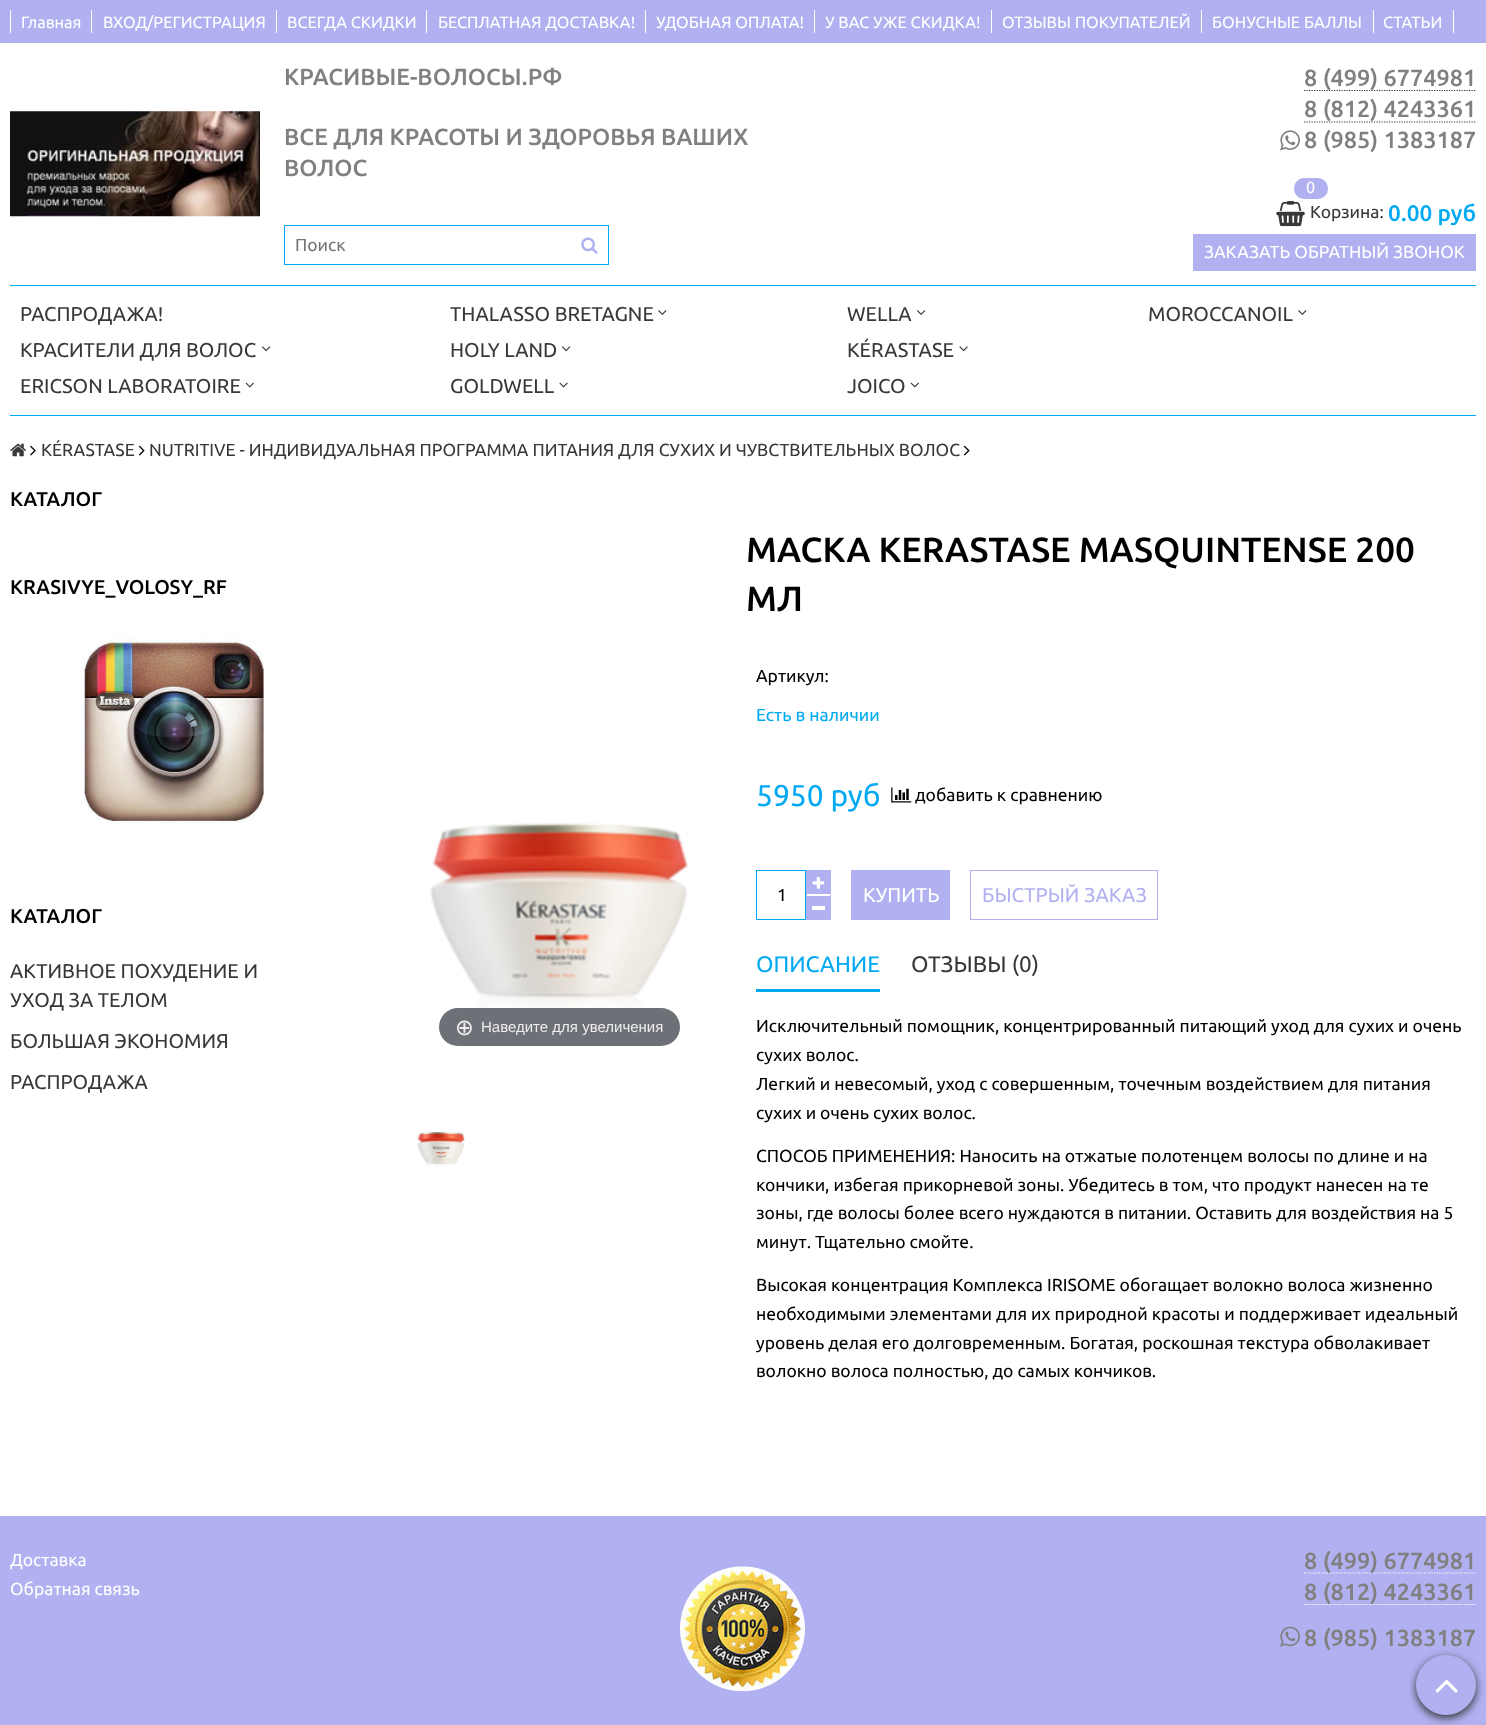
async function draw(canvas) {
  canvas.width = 1486
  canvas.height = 1725
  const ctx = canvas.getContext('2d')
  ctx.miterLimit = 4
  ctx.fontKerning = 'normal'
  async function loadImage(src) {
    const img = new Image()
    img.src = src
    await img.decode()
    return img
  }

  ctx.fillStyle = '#b1b1f2'
  ctx.fillRect(0, 0, 1486, 1725)
  ctx.fillStyle = '#fff'
  ctx.fillRect(0, 43, 1486, 1473)
  ctx.fillRect(10, 10, 1, 23)
  ctx.font = '16.25px Ubuntu'
  ctx.fillText('Главная', 21, 28)
  ctx.fillRect(91, 10, 1, 23)
  ctx.fillText('ВХОД/РЕГИСТРАЦИЯ', 103, 28)
  ctx.fillRect(276, 10, 1, 23)
  ctx.fillText('ВСЕГДА СКИДКИ', 287, 28)
  ctx.fillRect(426, 10, 1, 23)
  ctx.fillText('БЕСПЛАТНАЯ ДОСТАВКА!', 438, 28)
  ctx.fillRect(645, 10, 1, 23)
  ctx.fillText('УДОБНАЯ ОПЛАТА!', 656, 28)
  ctx.fillRect(814, 10, 1, 23)
  ctx.fillText('У ВАС УЖЕ СКИДКА!', 825, 28)
  ctx.fillRect(991, 10, 1, 23)
  ctx.fillText('ОТЗЫВЫ ПОКУПАТЕЛЕЙ', 1002, 28)
  ctx.fillRect(1201, 10, 1, 23)
  ctx.fillText('БОНУСНЫЕ БАЛЛЫ', 1212, 28)
  ctx.fillRect(1453, 10, 1, 23)
  ctx.fillRect(1373, 10, 1, 23)
  ctx.fillText('СТАТЬИ', 1383, 28)
  ctx.drawImage(await loadImage('image0.png'), 10, 111, 250, 106)
  ctx.font = '500 23.3px Ubuntu'
  ctx.fillStyle = '#808080'
  ctx.fillText('КРАСИВЫЕ-ВОЛОСЫ.РФ', 284, 85)
  ctx.fillText('ВСЕ ДЛЯ КРАСОТЫ И ЗДОРОВЬЯ ВАШИХ', 284, 145)
  ctx.fillText('ВОЛОС', 284, 176)
  ctx.strokeStyle = '#00a9f2'
  ctx.strokeRect(284.5, 225.5, 324, 39)
  ctx.font = '17.5px Ubuntu'
  ctx.fillStyle = '#757575'
  ctx.fillText('Поиск', 295, 251)
  ctx.drawImage(await loadImage('image1.png'), 581, 237, 17, 17)
  ctx.beginPath()
  ctx.moveTo(1304, 90.5)
  ctx.lineTo(1476, 90.5)
  ctx.strokeStyle = '#383838'
  ctx.lineWidth = 1.2
  ctx.setLineDash([1.25, 1.25])
  ctx.stroke()
  ctx.font = '500 23.3px Ubuntu'
  ctx.fillStyle = '#808080'
  ctx.fillText('8 (499) 6774981', 1304, 86)
  ctx.beginPath()
  ctx.moveTo(1304, 122)
  ctx.lineTo(1476, 122)
  ctx.stroke()
  ctx.fillText('8 (812) 4243361', 1304, 117)
  ctx.drawImage(await loadImage('image2.png'), 1280, 130, 20, 21)
  ctx.fillText('8 (985) 1383187', 1304, 148)
  ctx.fillStyle = '#b1b1f2'
  ctx.beginPath()
  ctx.roundRect(1294, 178, 34, 21, 10)
  ctx.fill()
  ctx.font = '16.25px Ubuntu'
  ctx.fillStyle = '#fff'
  ctx.fillText('0', 1306, 193)
  ctx.drawImage(await loadImage('image3.png'), 1276, 201, 29, 26)
  ctx.font = '17.5px Ubuntu'
  ctx.fillStyle = '#383838'
  ctx.fillText('Корзина:', 1310, 218)
  ctx.font = '500 22.5px Ubuntu'
  ctx.fillStyle = '#00a9f2'
  ctx.fillText('0.00 руб', 1388, 221)
  ctx.fillStyle = '#b1b1f2'
  ctx.fillRect(1193, 234, 283, 37)
  ctx.font = '17.5px Ubuntu'
  ctx.fillStyle = '#fff'
  ctx.fillText('ЗАКАЗАТЬ ОБРАТНЫЙ ЗВОНОК', 1204, 258)
  ctx.fillStyle = '#00a9f2'
  ctx.fillRect(10, 285, 1466, 1)
  ctx.fillRect(10, 415, 1466, 1)
  ctx.font = '20px Ubuntu'
  ctx.fillStyle = '#383838'
  ctx.fillText('РАСПРОДАЖА!', 20, 321)
  ctx.fillText('THALASSO BRETAGNE', 450, 321)
  ctx.drawImage(await loadImage('image4.png'), 658, 310, 9, 5)
  ctx.fillText('WELLA', 847, 321)
  ctx.drawImage(await loadImage('image5.png'), 916, 310, 10, 5)
  ctx.fillText('MOROCCANOIL', 1148, 321)
  ctx.drawImage(await loadImage('image4.png'), 1298, 310, 9, 5)
  ctx.fillText('КРАСИТЕЛИ ДЛЯ ВОЛОС', 20, 357)
  ctx.drawImage(await loadImage('image6.png'), 262, 346, 9, 6)
  ctx.fillText('HOLY LAND', 450, 357)
  ctx.drawImage(await loadImage('image6.png'), 562, 346, 9, 6)
  ctx.fillText('KÉRASTASE', 847, 357)
  ctx.drawImage(await loadImage('image7.png'), 959, 346, 9, 6)
  ctx.fillText('ERICSON LABORATOIRE', 20, 393)
  ctx.drawImage(await loadImage('image8.png'), 245, 382, 9, 6)
  ctx.fillText('GOLDWELL', 450, 393)
  ctx.drawImage(await loadImage('image9.png'), 559, 382, 9, 6)
  ctx.fillText('JOICO', 847, 393)
  ctx.drawImage(await loadImage('image8.png'), 910, 382, 9, 6)
  ctx.drawImage(await loadImage('image10.png'), 10, 443, 16, 14)
  ctx.drawImage(await loadImage('image11.png'), 30, 445, 6, 11)
  ctx.font = '17.5px Ubuntu'
  ctx.fillText('KÉRASTASE', 41, 456)
  ctx.drawImage(await loadImage('image12.png'), 138, 445, 7, 11)
  ctx.fillText('NUTRITIVE - ИНДИВИДУАЛЬНАЯ ПРОГРАММА ПИТАНИЯ ДЛЯ СУХИХ И ЧУВСТВИТЕЛЬНЫХ ВОЛОС', 149, 456)
  ctx.drawImage(await loadImage('image12.png'), 963, 445, 7, 11)
  ctx.font = '500 20px Ubuntu'
  ctx.fillStyle = '#000'
  ctx.fillText('КАТАЛОГ', 10, 506)
  ctx.fillText('KRASIVYE_VOLOSY_RF', 10, 594)
  ctx.drawImage(await loadImage('image13.png'), 81, 636, 184, 189)
  ctx.fillText('КАТАЛОГ', 10, 923)
  ctx.font = '20px Ubuntu'
  ctx.fillStyle = '#383838'
  ctx.fillText('АКТИВНОЕ ПОХУДЕНИЕ И', 10, 978)
  ctx.fillText('УХОД ЗА ТЕЛОМ', 10, 1007)
  ctx.fillText('БОЛЬШАЯ ЭКОНОМИЯ', 10, 1048)
  ctx.fillText('РАСПРОДАЖА', 10, 1089)
  ctx.font = '500 35px Ubuntu'
  ctx.fillStyle = '#000'
  ctx.fillText('МАСКА KERASTASE MASQUINTENSE 200', 746, 562)
  ctx.fillText('МЛ', 746, 611)
  ctx.font = '17.5px Ubuntu'
  ctx.fillText('Артикул:', 756, 682)
  ctx.fillStyle = '#00a9f2'
  ctx.fillText('Есть в наличии', 756, 721)
  ctx.font = '30px Ubuntu'
  ctx.fillText('5950 руб', 756, 806)
  ctx.drawImage(await loadImage('image14.png'), 891, 787, 21, 16)
  ctx.font = '17.5px Ubuntu'
  ctx.fillStyle = '#000'
  ctx.fillText('добавить к сравнению', 915, 801)
  ctx.fillStyle = '#b1b1f2'
  ctx.fillRect(807, 896, 23, 24)
  ctx.fillRect(830, 895, 1, 25)
  ctx.fillRect(806, 870, 1, 50)
  ctx.fillStyle = '#fff'
  ctx.fillRect(812, 906, 13, 4)
  ctx.strokeStyle = '#00a9f2'
  ctx.lineWidth = 1
  ctx.setLineDash([])
  ctx.strokeRect(756.5, 870.5, 49, 49)
  ctx.fillStyle = '#000'
  ctx.fillText('1', 777, 901)
  ctx.fillStyle = '#b1b1f2'
  ctx.fillRect(807, 870, 24, 24)
  ctx.drawImage(await loadImage('image15.png'), 812, 876, 13, 13)
  ctx.fillRect(851, 870, 99, 50)
  ctx.font = '20px Ubuntu'
  ctx.fillStyle = '#fff'
  ctx.fillText('КУПИТЬ', 863, 902)
  ctx.strokeStyle = '#b1b1f2'
  ctx.strokeRect(970.5, 870.5, 187, 49)
  ctx.fillStyle = '#b1b1f2'
  ctx.fillText('БЫСТРЫЙ ЗАКАЗ', 982, 902)
  ctx.drawImage(await loadImage('image16.png'), 430, 822, 259, 194)
  ctx.fillStyle = '#31333db3'
  ctx.beginPath()
  ctx.roundRect(439, 1008, 241, 38, 19)
  ctx.fill()
  ctx.font = '22.5px DejaVu Sans'
  ctx.fillStyle = '#eee'
  ctx.fillText('⊕', 455, 1035)
  ctx.font = '15px Liberation Sans'
  ctx.fillText('Наведите для увеличения', 481, 1032)
  ctx.drawImage(await loadImage('image17.png'), 417, 1131, 48, 36)
  ctx.fillStyle = '#00a9f2'
  ctx.fillRect(756, 989, 124, 3)
  ctx.font = '22.5px Ubuntu'
  ctx.fillText('ОПИСАНИЕ', 756, 972)
  ctx.fillStyle = '#383838'
  ctx.fillText('ОТЗЫВЫ (0)', 911, 972)
  ctx.font = '17.5px Ubuntu'
  ctx.fillStyle = '#000'
  ctx.fillText('Исключительный помощник, концентрированный питающий уход для сухих и очень', 756, 1032)
  ctx.fillText('сухих волос.', 756, 1061)
  ctx.fillText('Легкий и невесомый, уход с совершенным, точечным воздействием для питания', 756, 1090)
  ctx.fillText('сухих и очень сухих волос.', 756, 1119)
  ctx.fillText('СПОСОБ ПРИМЕНЕНИЯ: Наносить на отжатые полотенцем волосы по длине и на', 756, 1162)
  ctx.fillText('кончики, избегая прикорневой зоны. Убедитесь в том, что продукт нанесен на те', 756, 1191)
  ctx.fillText('зоны, где волосы более всего нуждаются в питании. Оставить для воздействия на 5', 756, 1219)
  ctx.fillText('минут. Тщательно смойте.', 756, 1248)
  ctx.fillText('Высокая концентрация Комплекса IRISOME обогащает волокно волоса жизненно', 756, 1291)
  ctx.fillText('необходимыми элементами для их природной красоты и поддерживает идеальный', 756, 1320)
  ctx.fillText('уровень делая его долговременным. Богатая, роскошная текстура обволакивает', 756, 1349)
  ctx.fillText('волокно волоса полностью, до самых кончиков.', 756, 1377)
  ctx.fillStyle = '#fff'
  ctx.fillText('Доставка', 10, 1566)
  ctx.fillText('Обратная связь', 10, 1595)
  ctx.drawImage(await loadImage('image18.png'), 680, 1566, 125, 126)
  ctx.beginPath()
  ctx.moveTo(1304, 1573)
  ctx.lineTo(1476, 1573)
  ctx.strokeStyle = '#fff'
  ctx.lineWidth = 1.2
  ctx.setLineDash([1.25, 1.25])
  ctx.stroke()
  ctx.font = '500 23.3px Ubuntu'
  ctx.fillStyle = '#808080'
  ctx.fillText('8 (499) 6774981', 1304, 1569)
  ctx.beginPath()
  ctx.moveTo(1304, 1604.5)
  ctx.lineTo(1476, 1604.5)
  ctx.stroke()
  ctx.fillText('8 (812) 4243361', 1304, 1600)
  ctx.drawImage(await loadImage('image19.png'), 1280, 1626, 20, 21)
  ctx.fillText('8 (985) 1383187', 1304, 1646)
  ctx.fillStyle = '#333'
  ctx.filter = 'blur(4px)'
  ctx.beginPath()
  ctx.roundRect(1416, 1658, 60, 60, 30)
  ctx.fill()
  ctx.filter = 'none'
  ctx.fillStyle = '#b1b1f2'
  ctx.beginPath()
  ctx.arc(1446, 1685, 29.5, 0, 2 * Math.PI)
  ctx.fill()
  ctx.strokeStyle = '#b1b1f2'
  ctx.lineWidth = 1
  ctx.setLineDash([])
  ctx.stroke()
  ctx.drawImage(await loadImage('image20.png'), 1435, 1679, 23, 14)
}

draw(document.querySelector('canvas'))
